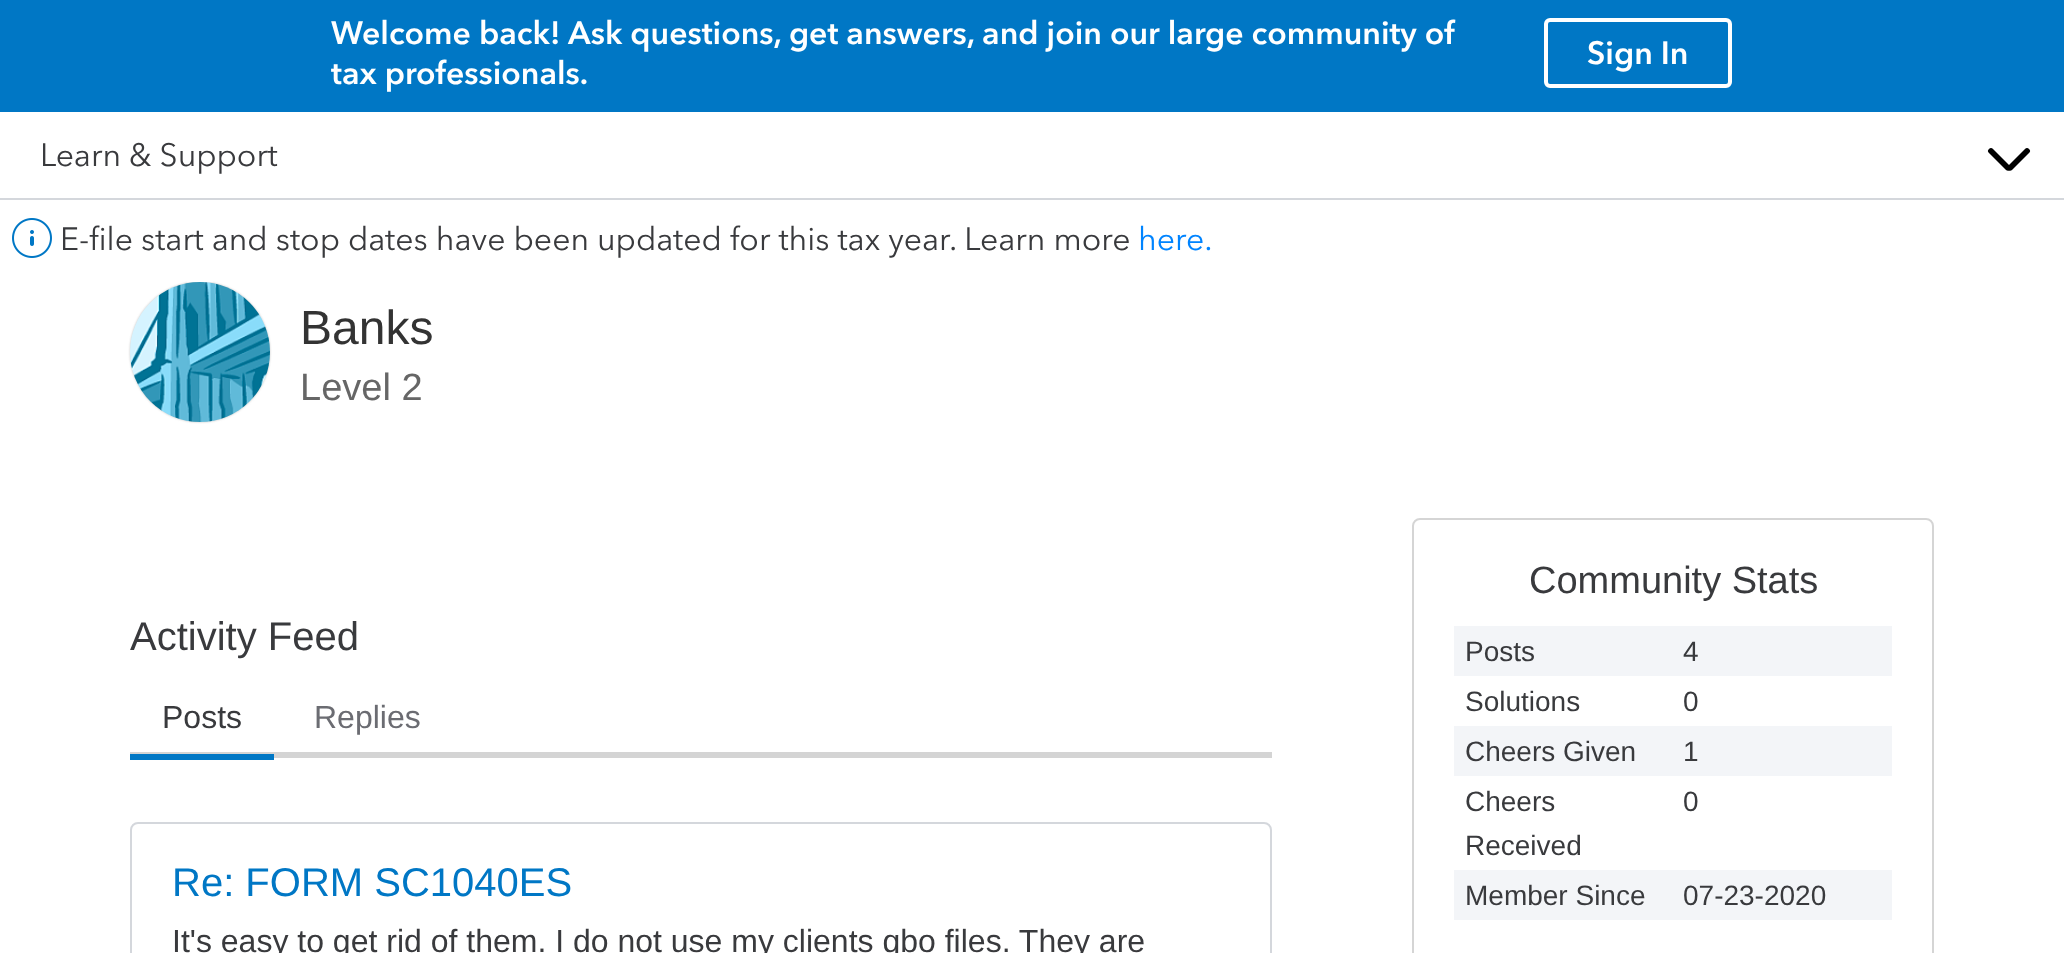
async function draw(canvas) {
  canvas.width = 2064
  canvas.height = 953
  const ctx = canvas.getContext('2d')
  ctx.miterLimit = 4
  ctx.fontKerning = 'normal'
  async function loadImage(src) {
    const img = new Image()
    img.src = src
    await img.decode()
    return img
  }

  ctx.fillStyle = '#fff'
  ctx.fillRect(0, 0, 2064, 953)
  ctx.fillStyle = '#0077c5'
  ctx.fillRect(0, 0, 2064, 112)
  ctx.font = '600 32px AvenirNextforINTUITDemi'
  ctx.fillStyle = '#fff'
  ctx.fillText('Welcome back! Ask questions, get answers, and join our large community of', 331, 44)
  ctx.fillText('tax professionals.', 331, 84)
  ctx.beginPath()
  ctx.roundRect(1546, 20, 184, 66, 4)
  ctx.strokeStyle = '#fff'
  ctx.lineWidth = 4
  ctx.stroke()
  ctx.fillText('Sign In', 1587, 64)
  ctx.fillStyle = '#d4d7dc'
  ctx.fillRect(0, 198, 2064, 2)
  ctx.font = '32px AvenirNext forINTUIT'
  ctx.fillStyle = '#393a3d'
  ctx.fillText('Learn & Support', 40, 166)
  ctx.fillStyle = '#000'
  ctx.beginPath()
  ctx.moveTo(2008, 166)
  ctx.lineTo(2025, 149)
  ctx.bezierCurveTo(2026, 147.5, 2028, 147.5, 2029, 149)
  ctx.bezierCurveTo(2030.5, 150, 2030.5, 152, 2029, 153)
  ctx.lineTo(2012, 170)
  ctx.bezierCurveTo(2011, 171, 2009, 171, 2008, 170)
  ctx.bezierCurveTo(2007, 169, 2007, 167, 2008, 166)
  ctx.closePath()
  ctx.fill()
  ctx.beginPath()
  ctx.moveTo(1993, 149)
  ctx.lineTo(2010, 166)
  ctx.bezierCurveTo(2011, 167, 2011, 169, 2010, 170)
  ctx.bezierCurveTo(2009, 171, 2007, 171, 2006, 170)
  ctx.lineTo(1989, 153)
  ctx.bezierCurveTo(1987.5, 152, 1987.5, 150, 1989, 149)
  ctx.bezierCurveTo(1990, 147.5, 1992, 147.5, 1993, 149)
  ctx.closePath()
  ctx.fill()
  ctx.fillStyle = '#c4c4c4'
  ctx.filter = 'blur(1px)'
  ctx.beginPath()
  ctx.roundRect(130, 282, 140, 140, 70)
  ctx.fill()
  ctx.filter = 'none'
  ctx.fillStyle = '#fff'
  ctx.fillRect(187, 280, 26, 2)
  ctx.drawImage(await loadImage('image0.png'), 12, 218, 40, 40)
  ctx.fillStyle = '#393a3d'
  ctx.fillText('E-file start and stop dates have been updated for this tax year. Learn more', 60, 250)
  ctx.fillStyle = '#0084ff'
  ctx.fillText('here.', 1138, 250)
  ctx.drawImage(await loadImage('image1.png'), 130, 282, 140, 140)
  ctx.font = '48px Liberation Sans'
  ctx.fillStyle = '#333'
  ctx.fillText('Banks', 300, 344)
  ctx.font = '38px Liberation Sans'
  ctx.fillStyle = '#666'
  ctx.fillText('Level 2', 300, 400)
  ctx.font = '40px Liberation Sans'
  ctx.fillStyle = '#393a3d'
  ctx.fillText('Activity Feed', 130, 650)
  ctx.fillStyle = '#d4d4d4'
  ctx.fillRect(130, 752, 1142, 6)
  ctx.fillStyle = '#0077c5'
  ctx.fillRect(130, 754, 144, 6)
  ctx.font = '32px Liberation Sans'
  ctx.fillStyle = '#393a3d'
  ctx.fillText('Posts', 162, 728)
  ctx.fillStyle = '#6b6c72'
  ctx.fillText('Replies', 314, 728)
  ctx.beginPath()
  ctx.roundRect(131, 823, 1140, 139, 7)
  ctx.strokeStyle = '#d4d7dc'
  ctx.lineWidth = 2
  ctx.stroke()
  ctx.font = '40px Liberation Sans'
  ctx.fillStyle = '#0077c5'
  ctx.fillText('Re: FORM SC1040ES', 172, 896)
  ctx.font = '32px Liberation Sans'
  ctx.fillStyle = '#393a3d'
  ctx.fillText('It\'s easy to get rid of them. I do not use my clients qbo files. They are', 172, 952)
  ctx.beginPath()
  ctx.roundRect(1413, 519, 520, 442, 7)
  ctx.strokeStyle = '#d5d5d5'
  ctx.stroke()
  ctx.font = '38px Liberation Sans'
  ctx.fillText('Community Stats', 1529, 593)
  ctx.fillStyle = '#f3f5f8'
  ctx.fillRect(1454, 626, 438, 50)
  ctx.font = '28px Liberation Sans'
  ctx.fillStyle = '#393a3d'
  ctx.fillText('Posts', 1465, 661)
  ctx.fillText('4', 1683, 661)
  ctx.fillText('Solutions', 1465, 711)
  ctx.fillText('0', 1683, 711)
  ctx.fillStyle = '#f3f5f8'
  ctx.fillRect(1454, 726, 438, 50)
  ctx.fillStyle = '#393a3d'
  ctx.fillText('Cheers Given', 1465, 761)
  ctx.fillText('1', 1683, 761)
  ctx.fillText('Cheers', 1465, 811)
  ctx.fillText('Received', 1465, 855)
  ctx.fillText('0', 1683, 811)
  ctx.fillStyle = '#f3f5f8'
  ctx.fillRect(1454, 870, 438, 50)
  ctx.fillStyle = '#393a3d'
  ctx.fillText('Member Since', 1465, 905)
  ctx.fillText('07-23-2020', 1683, 905)
}

draw(document.querySelector('canvas'))
